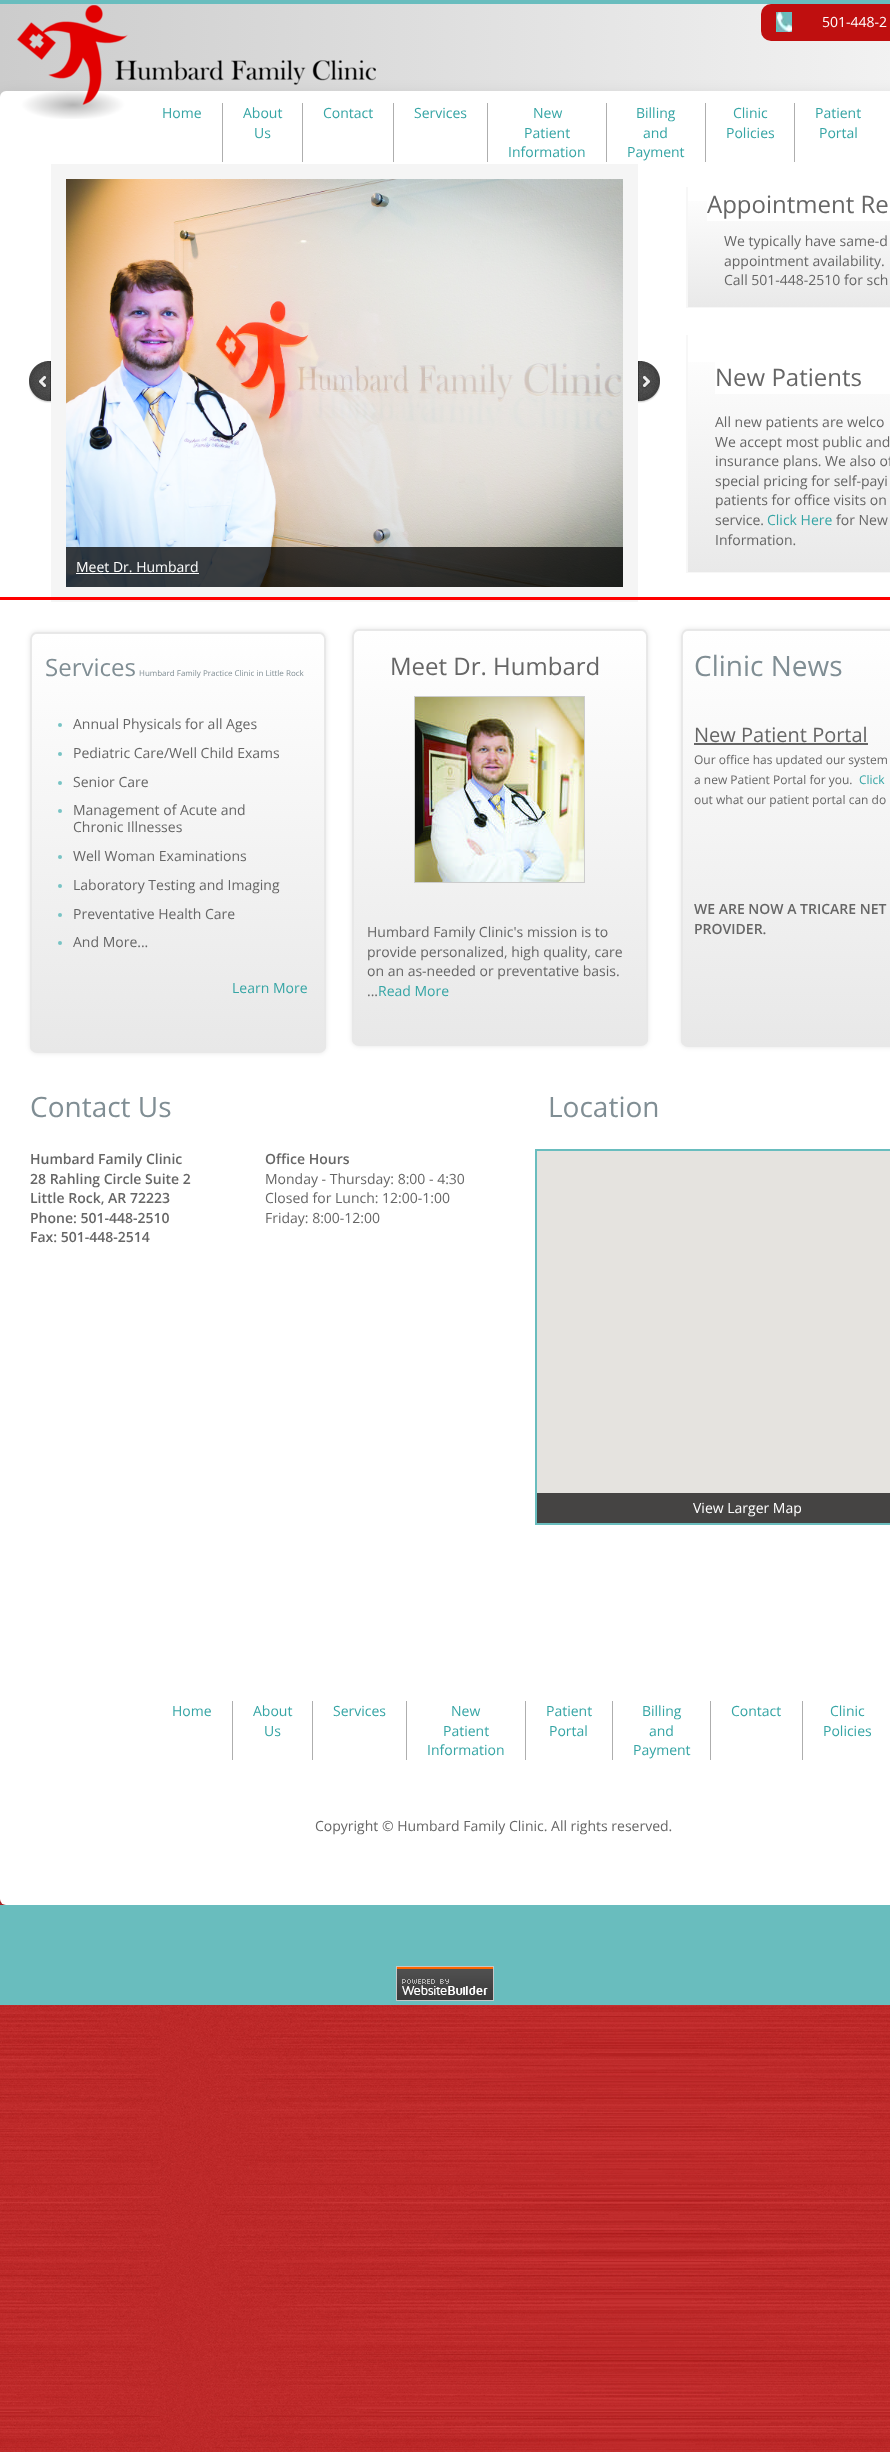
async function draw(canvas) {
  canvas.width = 890
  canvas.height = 2452
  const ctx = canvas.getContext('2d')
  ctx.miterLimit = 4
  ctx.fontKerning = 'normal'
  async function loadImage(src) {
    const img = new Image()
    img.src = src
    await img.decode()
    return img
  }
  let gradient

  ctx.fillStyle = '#69bdbe'
  ctx.fillRect(0, 0, 890, 2452)
  ctx.drawImage(await loadImage('image0.png'), 0, 4, 890, 2448)
  ctx.fillStyle = '#00000033'
  ctx.filter = 'blur(10px)'
  ctx.beginPath()
  ctx.roundRect(0, 101, 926, 1814, 6)
  ctx.fill()
  ctx.filter = 'none'
  ctx.fillStyle = '#fff'
  ctx.beginPath()
  ctx.roundRect(0, 91, 890, 1814, [6, 0, 0, 6])
  ctx.fill()
  ctx.drawImage(await loadImage('image1.png'), 17, 5, 359, 114)
  ctx.fillStyle = '#bf0f0f'
  ctx.beginPath()
  ctx.roundRect(761, 4, 129, 37, [10, 0, 0, 10])
  ctx.fill()
  ctx.drawImage(await loadImage('image2.png'), 776, 12, 16, 20)
  ctx.font = '14px Open Sans'
  ctx.fillStyle = '#fff'
  ctx.fillText('501-448-2', 822, 27)
  ctx.fillStyle = '#aeaeae'
  ctx.fillRect(222, 103, 1, 59)
  ctx.fillStyle = '#36a5a5'
  ctx.fillText('Home', 162, 118)
  ctx.fillStyle = '#aeaeae'
  ctx.fillRect(302, 103, 1, 59)
  ctx.fillStyle = '#36a5a5'
  ctx.fillText('About', 243, 118)
  ctx.fillText('Us', 254, 138)
  ctx.fillStyle = '#aeaeae'
  ctx.fillRect(393, 103, 1, 59)
  ctx.fillStyle = '#36a5a5'
  ctx.fillText('Contact', 323, 118)
  ctx.fillStyle = '#aeaeae'
  ctx.fillRect(487, 103, 1, 59)
  ctx.fillStyle = '#36a5a5'
  ctx.fillText('Services', 414, 118)
  ctx.fillStyle = '#aeaeae'
  ctx.fillRect(606, 103, 1, 59)
  ctx.fillStyle = '#36a5a5'
  ctx.fillText('New', 533, 118)
  ctx.fillText('Patient', 524, 138)
  ctx.fillText('Information', 508, 157)
  ctx.fillStyle = '#aeaeae'
  ctx.fillRect(705, 103, 1, 59)
  ctx.fillStyle = '#36a5a5'
  ctx.fillText('Billing', 636, 118)
  ctx.fillText('and', 643, 138)
  ctx.fillText('Payment', 627, 157)
  ctx.fillStyle = '#aeaeae'
  ctx.fillRect(794, 103, 1, 59)
  ctx.fillStyle = '#36a5a5'
  ctx.fillText('Clinic', 733, 118)
  ctx.fillText('Policies', 726, 138)
  ctx.fillText('Patient', 815, 118)
  ctx.fillText('Portal', 819, 138)
  gradient = ctx.createLinearGradient(839, 187, 839, 307)
  gradient.addColorStop(0, '#fff')
  gradient.addColorStop(1, '#e9e9e9')
  ctx.fillStyle = gradient
  ctx.fillRect(688, 201, 202, 106)
  ctx.fillStyle = '#f7f7f7'
  ctx.fillRect(686, 307, 204, 1)
  ctx.fillRect(686, 187, 2, 121)
  ctx.fillStyle = '#fff'
  ctx.fillRect(707, 201, 183, 20)
  ctx.font = '24px Open Sans'
  ctx.fillStyle = '#666'
  ctx.fillText('Appointment Re', 707, 213)
  ctx.font = '14px Open Sans'
  ctx.fillText('We typically have same-d', 724, 246)
  ctx.fillText('appointment availability.', 724, 266)
  ctx.fillText('Call 501-448-2510 for sch', 724, 285)
  gradient = ctx.createLinearGradient(839, 335, 839, 572)
  gradient.addColorStop(0, '#fff')
  gradient.addColorStop(1, '#e9e9e9')
  ctx.fillStyle = gradient
  ctx.fillRect(688, 362, 202, 210)
  ctx.fillStyle = '#f7f7f7'
  ctx.fillRect(686, 572, 204, 1)
  ctx.fillRect(686, 335, 2, 238)
  ctx.fillStyle = '#fff'
  ctx.fillRect(715, 362, 175, 32)
  ctx.font = '24px Open Sans'
  ctx.fillStyle = '#666'
  ctx.fillText('New Patients', 715, 386)
  ctx.font = '14px Open Sans'
  ctx.fillText('All new patients are welco', 715, 427)
  ctx.fillText('We accept most public and', 715, 447)
  ctx.fillText('insurance plans. We also of', 715, 466)
  ctx.fillText('special pricing for self-payi', 715, 486)
  ctx.fillText('patients for office visits on', 715, 505)
  ctx.fillText('service.', 715, 525)
  ctx.fillStyle = '#36a5a5'
  ctx.fillText('Click Here', 767, 525)
  ctx.fillStyle = '#666'
  ctx.fillText('for New', 836, 525)
  ctx.fillText('Information.', 715, 545)
  ctx.drawImage(await loadImage('image3.png'), 29, 361, 22, 42)
  ctx.drawImage(await loadImage('image4.png'), 638, 361, 22, 42)
  ctx.strokeStyle = '#f5f5f5'
  ctx.lineWidth = 15
  ctx.strokeRect(58.5, 171.5, 572, 423)
  ctx.drawImage(await loadImage('image5.png'), 66, 179, 557, 408)
  ctx.fillStyle = '#000000bf'
  ctx.fillRect(66, 547, 557, 40)
  ctx.fillStyle = '#fff'
  ctx.fillText('Meet Dr. Humbard', 76, 572)
  ctx.fillRect(76, 573, 123, 1)
  ctx.fillStyle = '#f00'
  ctx.fillRect(0, 597, 890, 3)
  ctx.fillStyle = '#0000001a'
  ctx.filter = 'blur(2.5px)'
  ctx.beginPath()
  ctx.roundRect(30, 632, 296, 421, 7)
  ctx.fill()
  ctx.filter = 'none'
  ctx.save()
  ctx.beginPath()
  ctx.roundRect(30, 632, 296, 421, 7)
  ctx.clip()
  gradient = ctx.createLinearGradient(178, 634, 178, 1051)
  gradient.addColorStop(0, '#fff')
  gradient.addColorStop(1, '#e8e8e8')
  ctx.fillStyle = gradient
  ctx.fillRect(30, 634, 296, 417)
  ctx.restore()
  ctx.beginPath()
  ctx.roundRect(31, 633, 294, 419, 6)
  ctx.strokeStyle = '#e8e8e8'
  ctx.lineWidth = 2
  ctx.stroke()
  ctx.filter = 'blur(2.5px)'
  ctx.beginPath()
  ctx.roundRect(352, 629, 296, 417, 7)
  ctx.fill()
  ctx.filter = 'none'
  ctx.save()
  ctx.beginPath()
  ctx.roundRect(352, 629, 296, 417, 7)
  ctx.clip()
  gradient = ctx.createLinearGradient(500, 631, 500, 1044)
  gradient.addColorStop(0, '#fff')
  gradient.addColorStop(1, '#e8e8e8')
  ctx.fillStyle = gradient
  ctx.fillRect(352, 631, 296, 413)
  ctx.restore()
  ctx.beginPath()
  ctx.roundRect(353, 630, 294, 415, 6)
  ctx.stroke()
  ctx.filter = 'blur(2.5px)'
  ctx.beginPath()
  ctx.roundRect(681, 629, 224, 418, 7)
  ctx.fill()
  ctx.filter = 'none'
  ctx.save()
  ctx.beginPath()
  ctx.roundRect(681, 629, 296, 418, 7)
  ctx.clip()
  gradient = ctx.createLinearGradient(829, 631, 829, 1045)
  gradient.addColorStop(0, '#fff')
  gradient.addColorStop(1, '#e8e8e8')
  ctx.fillStyle = gradient
  ctx.fillRect(681, 631, 209, 414)
  ctx.restore()
  ctx.beginPath()
  ctx.roundRect(682, 630, 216, 416, 6)
  ctx.stroke()
  ctx.font = '24px Open Sans'
  ctx.fillStyle = '#808e94'
  ctx.fillText('Services', 45, 676)
  ctx.font = '8px Open Sans'
  ctx.fillText('Humbard Family Practice Clinic in Little Rock', 139, 676)
  ctx.font = '24px Open Sans'
  ctx.fillStyle = '#666'
  ctx.fillText('Meet Dr. Humbard', 390, 675)
  ctx.font = '28px Open Sans'
  ctx.fillStyle = '#808e94'
  ctx.fillText('Clinic News', 694, 676)
  ctx.fillStyle = '#78c3c4'
  ctx.beginPath()
  ctx.arc(60, 725, 2, 0, 2 * Math.PI)
  ctx.fill()
  ctx.font = '14px Open Sans'
  ctx.fillStyle = '#666'
  ctx.fillText('Annual Physicals for all Ages', 73, 729)
  ctx.fillStyle = '#78c3c4'
  ctx.beginPath()
  ctx.arc(60, 754, 2, 0, 2 * Math.PI)
  ctx.fill()
  ctx.fillStyle = '#666'
  ctx.fillText('Pediatric Care/Well Child Exams', 73, 758)
  ctx.fillStyle = '#78c3c4'
  ctx.beginPath()
  ctx.arc(60, 783, 2, 0, 2 * Math.PI)
  ctx.fill()
  ctx.fillStyle = '#666'
  ctx.fillText('Senior Care', 73, 787)
  ctx.fillStyle = '#78c3c4'
  ctx.beginPath()
  ctx.arc(60, 811, 2, 0, 2 * Math.PI)
  ctx.fill()
  ctx.fillStyle = '#666'
  ctx.fillText('Management of Acute and', 73, 815)
  ctx.fillText('Chronic Illnesses', 73, 832)
  ctx.fillStyle = '#78c3c4'
  ctx.beginPath()
  ctx.arc(60, 857, 2, 0, 2 * Math.PI)
  ctx.fill()
  ctx.fillStyle = '#666'
  ctx.fillText('Well Woman Examinations', 73, 861)
  ctx.fillStyle = '#78c3c4'
  ctx.beginPath()
  ctx.arc(60, 886, 2, 0, 2 * Math.PI)
  ctx.fill()
  ctx.fillStyle = '#666'
  ctx.fillText('Laboratory Testing and Imaging', 73, 890)
  ctx.fillStyle = '#78c3c4'
  ctx.beginPath()
  ctx.arc(60, 915, 2, 0, 2 * Math.PI)
  ctx.fill()
  ctx.fillStyle = '#666'
  ctx.fillText('Preventative Health Care', 73, 919)
  ctx.fillStyle = '#78c3c4'
  ctx.beginPath()
  ctx.arc(60, 943, 2, 0, 2 * Math.PI)
  ctx.fill()
  ctx.fillStyle = '#666'
  ctx.fillText('And More...', 73, 947)
  ctx.strokeStyle = '#ccc'
  ctx.lineWidth = 1
  ctx.strokeRect(414.5, 696.5, 170, 186)
  ctx.drawImage(await loadImage('image6.png'), 415, 697, 169, 185)
  ctx.font = '20px Open Sans'
  ctx.fillText('New Patient Portal', 694, 742)
  ctx.fillRect(694, 743, 174, 2)
  ctx.font = '12px Open Sans'
  ctx.fillText('Our office has updated our system', 694, 764)
  ctx.fillText('a new Patient Portal for you.', 694, 784)
  ctx.fillStyle = '#36a5a5'
  ctx.fillText('Click', 859, 784)
  ctx.fillStyle = '#666'
  ctx.fillText('out what our patient portal can do', 694, 804)
  ctx.font = '600 14px Open Sans'
  ctx.fillText('WE ARE NOW A TRICARE NET', 694, 914)
  ctx.fillText('PROVIDER.', 694, 934)
  ctx.font = '14px Open Sans'
  ctx.fillStyle = '#36a5a5'
  ctx.fillText('Learn More', 232, 993)
  ctx.fillStyle = '#666'
  ctx.fillText('Humbard Family Clinic\'s mission is to', 367, 937)
  ctx.fillText('provide personalized, high quality, care', 367, 957)
  ctx.fillText('on an as-needed or preventative basis.', 367, 976)
  ctx.fillText('...', 367, 996)
  ctx.fillStyle = '#36a5a5'
  ctx.fillText('Read More', 378, 996)
  ctx.font = '28px Open Sans'
  ctx.fillStyle = '#808e94'
  ctx.fillText('Contact Us', 30, 1117)
  ctx.fillText('Location', 548, 1117)
  ctx.font = '600 14px Open Sans'
  ctx.fillStyle = '#666'
  ctx.fillText('Humbard Family Clinic', 30, 1164)
  ctx.fillText('28 Rahling Circle Suite 2', 30, 1184)
  ctx.fillText('Little Rock, AR 72223', 30, 1203)
  ctx.fillText('Phone: 501-448-2510', 30, 1223)
  ctx.fillText('Fax: 501-448-2514', 30, 1242)
  ctx.fillText('Office Hours', 265, 1164)
  ctx.font = '14px Open Sans'
  ctx.fillText('Monday - Thursday: 8:00 - 4:30', 265, 1184)
  ctx.fillText('Closed for Lunch: 12:00-1:00', 265, 1203)
  ctx.fillText('Friday: 8:00-12:00', 265, 1223)
  ctx.strokeStyle = '#69bdbe'
  ctx.lineWidth = 2
  ctx.strokeRect(536, 1150, 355, 374)
  ctx.fillStyle = '#e5e3df'
  ctx.fillRect(537, 1151, 353, 342)
  ctx.fillStyle = '#454443'
  ctx.fillRect(537, 1493, 353, 30)
  ctx.fillStyle = '#fff'
  ctx.fillText('View Larger Map', 693, 1513)
  ctx.fillStyle = '#aeaeae'
  ctx.fillRect(232, 1701, 1, 59)
  ctx.fillStyle = '#36a5a5'
  ctx.fillText('Home', 172, 1716)
  ctx.fillStyle = '#aeaeae'
  ctx.fillRect(312, 1701, 1, 59)
  ctx.fillStyle = '#36a5a5'
  ctx.fillText('About', 253, 1716)
  ctx.fillText('Us', 264, 1736)
  ctx.fillStyle = '#aeaeae'
  ctx.fillRect(406, 1701, 1, 59)
  ctx.fillStyle = '#36a5a5'
  ctx.fillText('Services', 333, 1716)
  ctx.fillStyle = '#aeaeae'
  ctx.fillRect(525, 1701, 1, 59)
  ctx.fillStyle = '#36a5a5'
  ctx.fillText('New', 451, 1716)
  ctx.fillText('Patient', 443, 1736)
  ctx.fillText('Information', 427, 1755)
  ctx.fillStyle = '#aeaeae'
  ctx.fillRect(612, 1701, 1, 59)
  ctx.fillStyle = '#36a5a5'
  ctx.fillText('Patient', 546, 1716)
  ctx.fillText('Portal', 549, 1736)
  ctx.fillStyle = '#aeaeae'
  ctx.fillRect(710, 1701, 1, 59)
  ctx.fillStyle = '#36a5a5'
  ctx.fillText('Billing', 642, 1716)
  ctx.fillText('and', 649, 1736)
  ctx.fillText('Payment', 633, 1755)
  ctx.fillStyle = '#aeaeae'
  ctx.fillRect(802, 1701, 1, 59)
  ctx.fillStyle = '#36a5a5'
  ctx.fillText('Contact', 731, 1716)
  ctx.fillText('Clinic', 830, 1716)
  ctx.fillText('Policies', 823, 1736)
  ctx.fillStyle = '#666'
  ctx.fillText('Copyright © Humbard Family Clinic. All rights reserved.', 315, 1831)
  ctx.fillStyle = '#69bdbe'
  ctx.fillRect(0, 1905, 890, 100)
  ctx.drawImage(await loadImage('image7.png'), 396, 1966, 98, 35)
}

draw(document.querySelector('canvas'))
